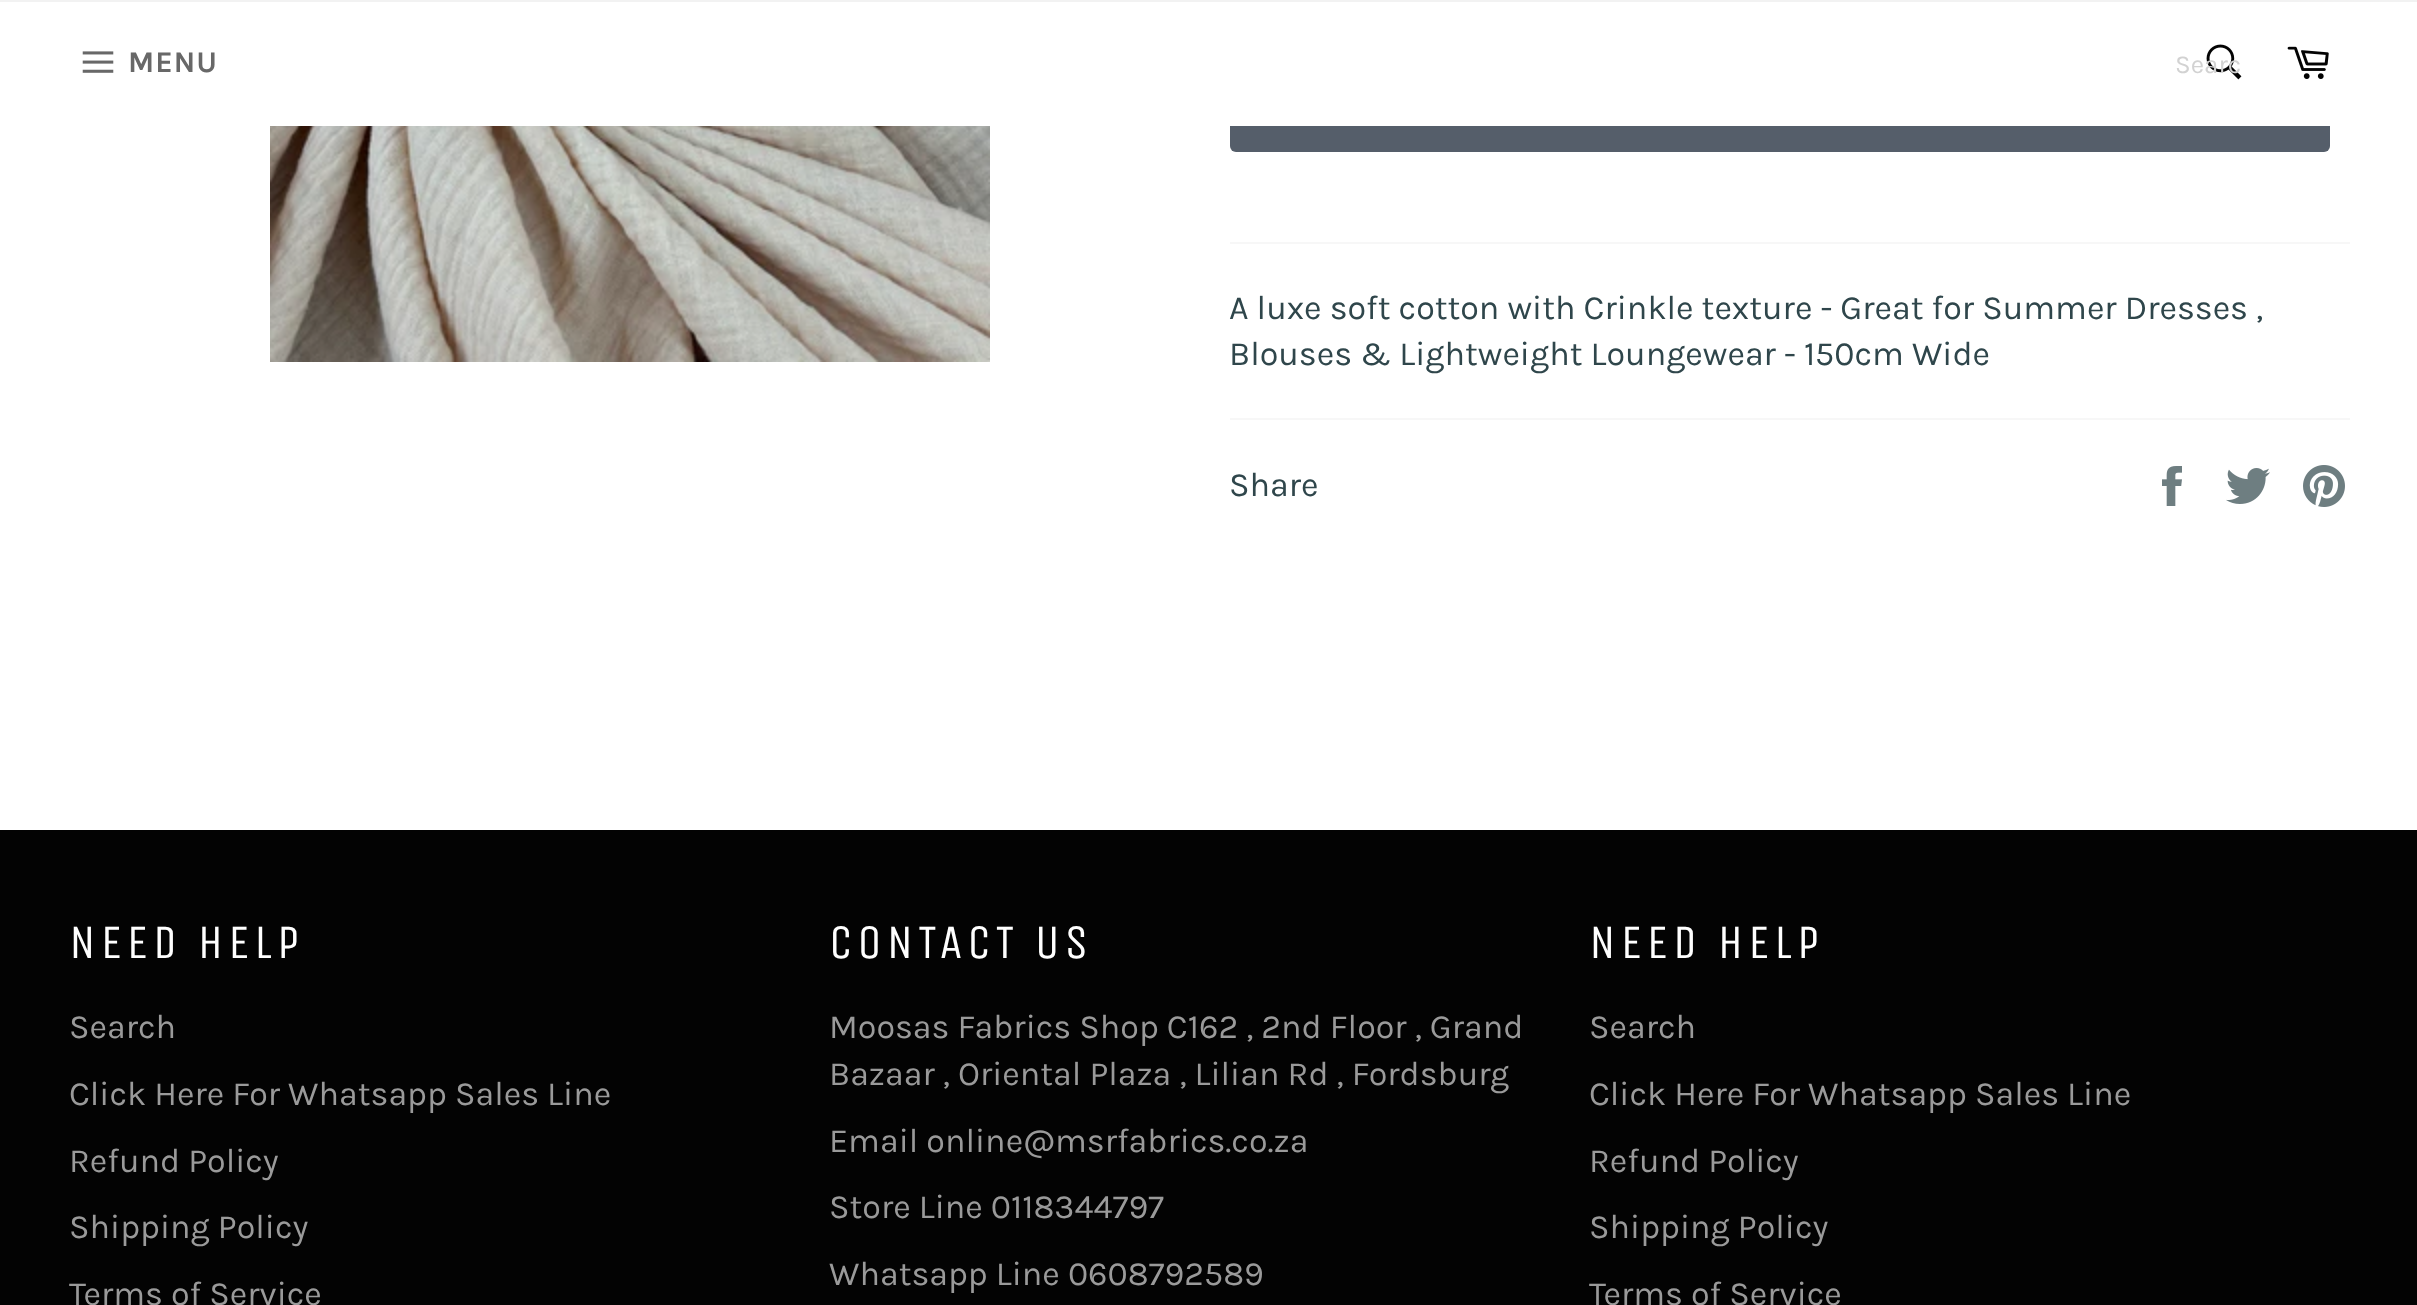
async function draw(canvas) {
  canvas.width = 2417
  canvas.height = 1305
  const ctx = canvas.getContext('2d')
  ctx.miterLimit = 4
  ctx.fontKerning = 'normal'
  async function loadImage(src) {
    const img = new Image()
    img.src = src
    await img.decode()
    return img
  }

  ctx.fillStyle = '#fff'
  ctx.fillRect(0, 0, 2417, 1305)
  ctx.fillStyle = '#555e6a'
  ctx.beginPath()
  ctx.roundRect(1230, 56, 1100, 96, 6)
  ctx.fill()
  ctx.fillStyle = '#fff'
  ctx.fillRect(1230, 56, 1100, 70)
  ctx.fillStyle = '#f2f2f2'
  ctx.fillRect(0, 0, 2417, 2)
  ctx.drawImage(await loadImage('image0.png'), 82, 51, 32, 22)
  ctx.letterSpacing = '1px'
  ctx.font = 'bold 30px Karla'
  ctx.fillStyle = '#686868'
  ctx.fillText('MENU', 128, 72)
  ctx.drawImage(await loadImage('image1.png'), 2206, 44, 36, 36)
  ctx.letterSpacing = '0px'
  ctx.font = '26px Karla'
  ctx.fillStyle = '#d2d2d2'
  ctx.fillText('Searc', 2175, 73)
  ctx.drawImage(await loadImage('image2.png'), 2287, 46, 42, 33)
  ctx.drawImage(await loadImage('image3.png'), 270, 126, 720, 236)
  ctx.fillStyle = '#f7f7f7'
  ctx.fillRect(1230, 242, 1120, 2)
  ctx.font = '34px Karla'
  ctx.fillStyle = '#2f464b'
  ctx.fillText('A luxe soft cotton with Crinkle texture - Great for Summer Dresses ,', 1229, 319)
  ctx.fillText('Blouses & Lightweight Loungewear - 150cm Wide', 1229, 365)
  ctx.fillStyle = '#f7f7f7'
  ctx.fillRect(1230, 418, 1120, 2)
  ctx.fillStyle = '#2f464b'
  ctx.fillText('Share', 1229, 496)
  ctx.drawImage(await loadImage('image4.png'), 2162, 466, 20, 40)
  ctx.drawImage(await loadImage('image5.png'), 2226, 468, 44, 36)
  ctx.drawImage(await loadImage('image6.png'), 2303, 465, 42, 42)
  ctx.fillStyle = '#030303'
  ctx.fillRect(0, 830, 2417, 475)
  ctx.letterSpacing = '4.75px'
  ctx.font = '48px Unica One'
  ctx.fillStyle = '#fff'
  ctx.fillText('NEED HELP', 69, 958)
  ctx.letterSpacing = '0px'
  ctx.font = '34px Karla'
  ctx.fillStyle = '#9a9a9a'
  ctx.fillText('Search', 69, 1038)
  ctx.fillText('Click Here For Whatsapp Sales Line', 69, 1105)
  ctx.fillText('Refund Policy', 69, 1172)
  ctx.fillText('Shipping Policy', 69, 1238)
  ctx.fillText('Terms of Service', 69, 1305)
  ctx.letterSpacing = '4.75px'
  ctx.font = '48px Unica One'
  ctx.fillStyle = '#fff'
  ctx.fillText('CONTACT US', 829, 958)
  ctx.letterSpacing = '0px'
  ctx.font = '34px Karla'
  ctx.fillStyle = '#9a9a9a'
  ctx.fillText('Moosas Fabrics Shop C162 , 2nd Floor , Grand', 829, 1038)
  ctx.fillText('Bazaar , Oriental Plaza , Lilian Rd , Fordsburg', 829, 1085)
  ctx.fillText('Email online@msrfabrics.co.za', 829, 1152)
  ctx.fillText('Store Line 0118344797', 829, 1218)
  ctx.fillText('Whatsapp Line 0608792589', 829, 1285)
  ctx.letterSpacing = '4.75px'
  ctx.font = '48px Unica One'
  ctx.fillStyle = '#fff'
  ctx.fillText('NEED HELP', 1589, 958)
  ctx.letterSpacing = '0px'
  ctx.font = '34px Karla'
  ctx.fillStyle = '#9a9a9a'
  ctx.fillText('Search', 1589, 1038)
  ctx.fillText('Click Here For Whatsapp Sales Line', 1589, 1105)
  ctx.fillText('Refund Policy', 1589, 1172)
  ctx.fillText('Shipping Policy', 1589, 1238)
  ctx.fillText('Terms of Service', 1589, 1305)
}

draw(document.querySelector('canvas'))
